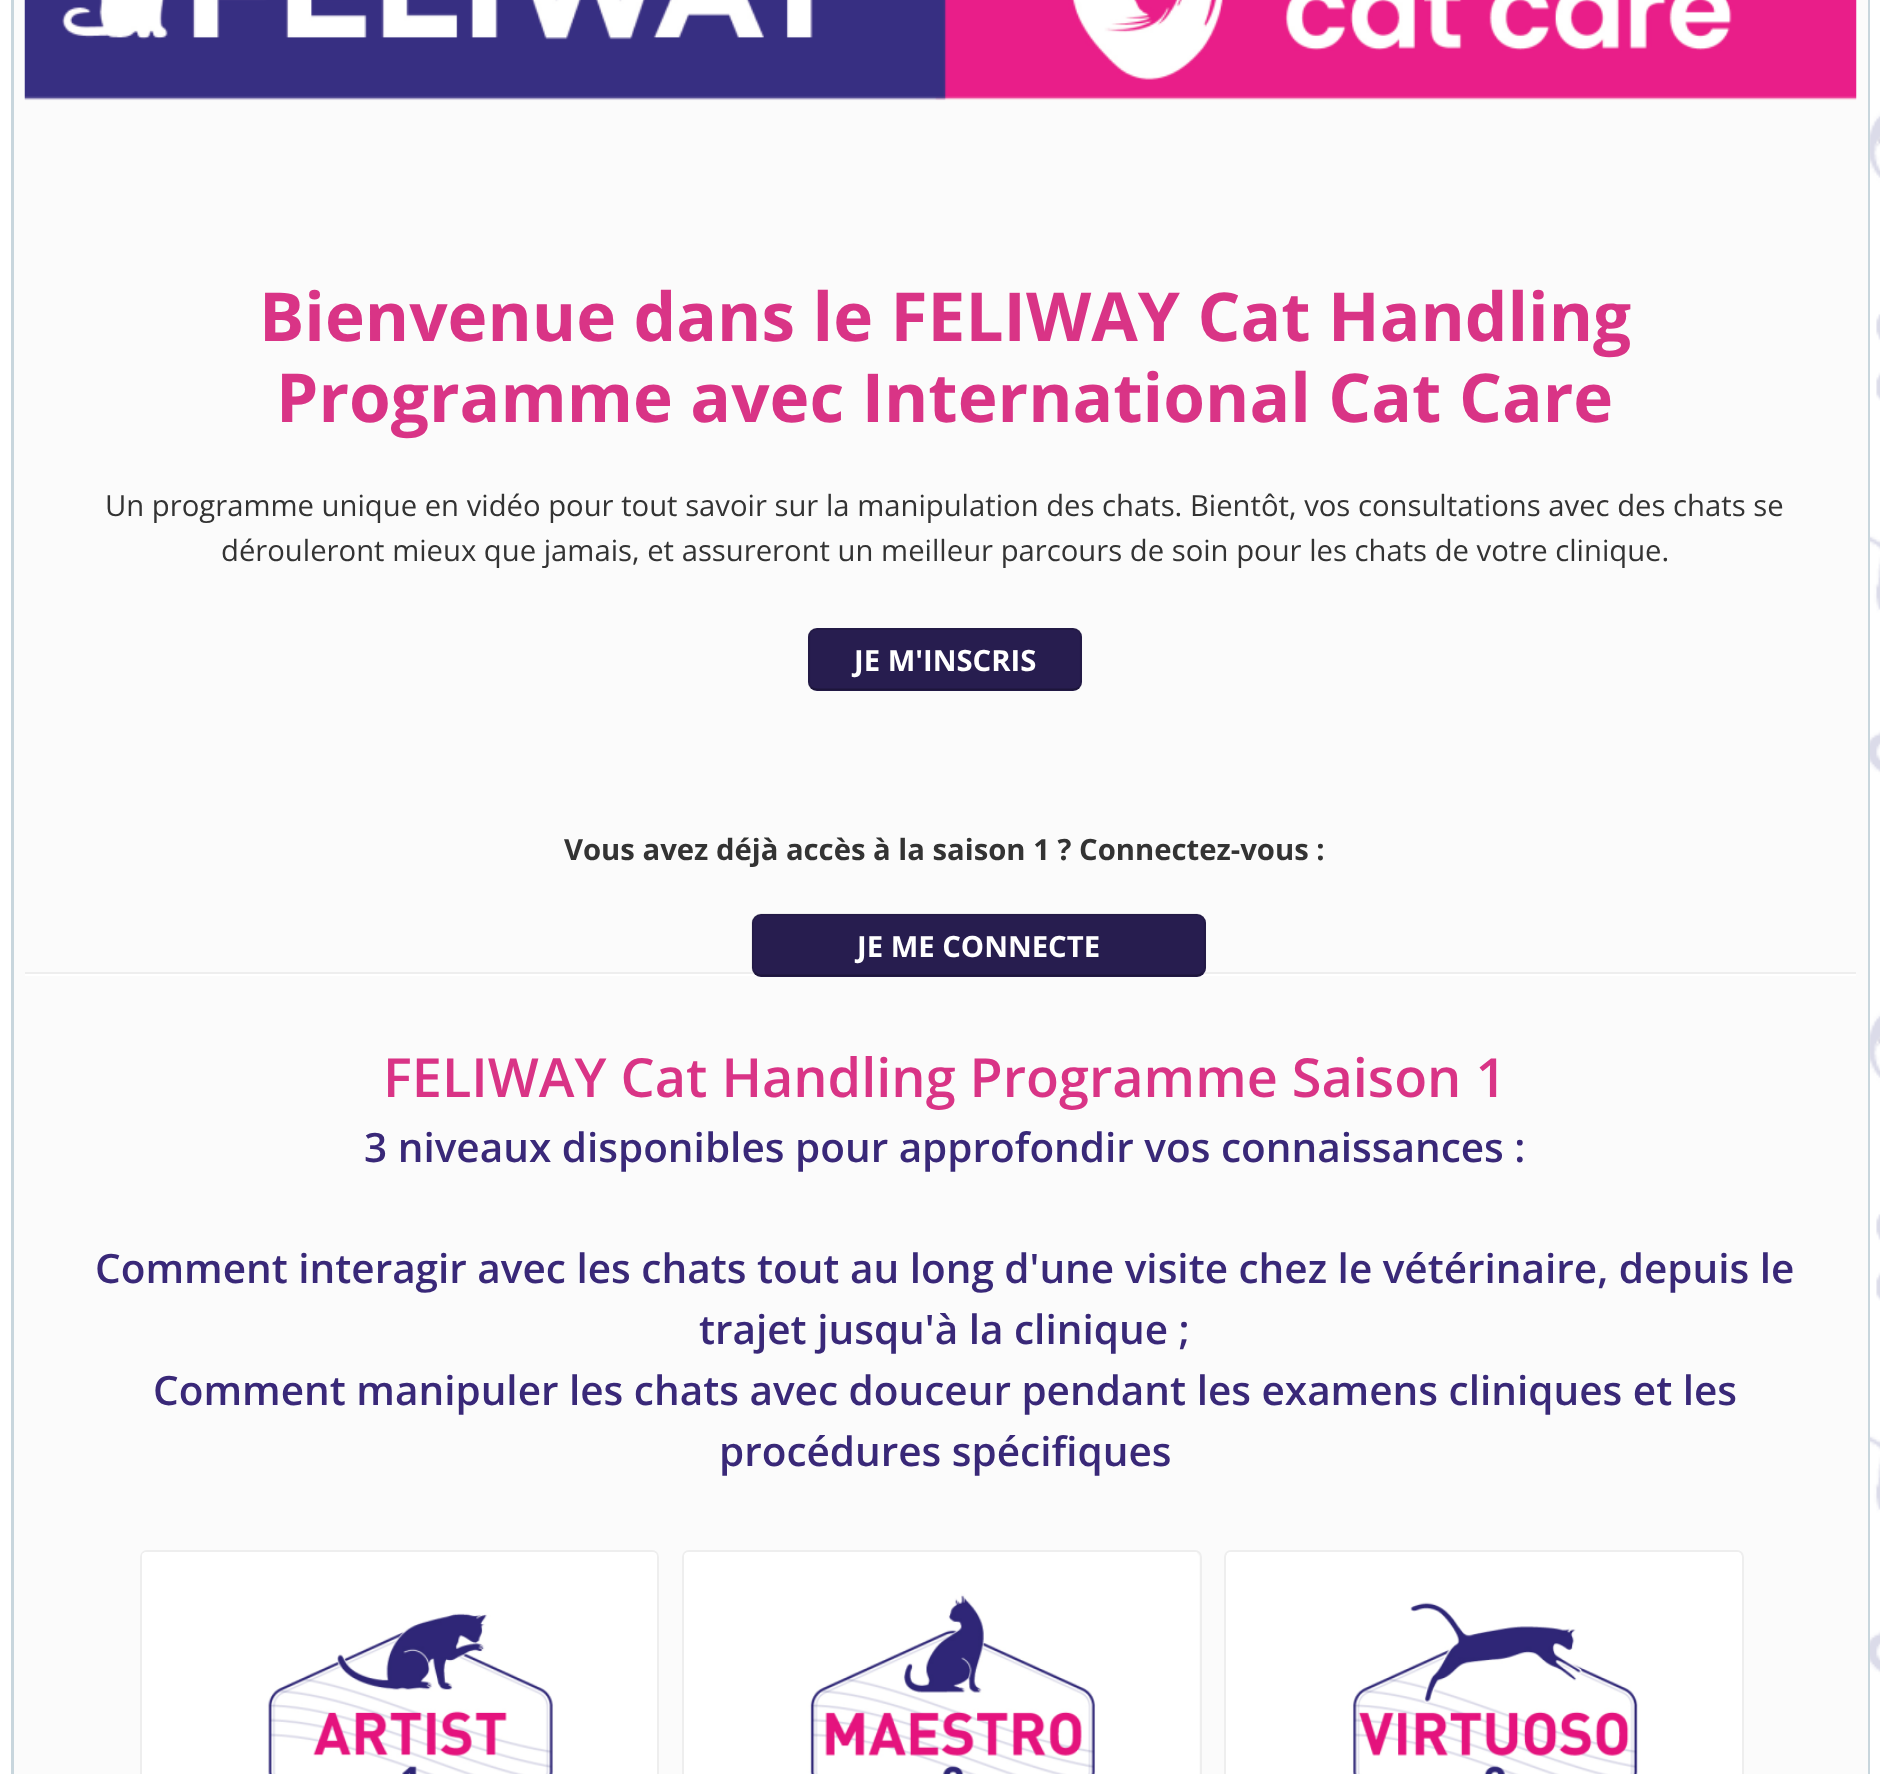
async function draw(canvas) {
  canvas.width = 1880
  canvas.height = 1774
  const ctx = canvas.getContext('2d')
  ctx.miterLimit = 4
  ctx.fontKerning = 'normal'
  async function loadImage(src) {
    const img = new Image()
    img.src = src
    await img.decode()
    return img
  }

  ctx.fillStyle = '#fff'
  ctx.fillRect(0, 0, 1880, 1774)
  ctx.drawImage(await loadImage('image0.png'), 0, 0, 1880, 1774)
  ctx.fillStyle = '#fbfbfb'
  ctx.fillRect(14, 0, 1854, 1774)
  ctx.fillStyle = '#c8d6dd'
  ctx.beginPath()
  ctx.moveTo(11, -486)
  ctx.lineTo(1870, -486)
  ctx.lineTo(1870, 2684)
  ctx.bezierCurveTo(1870, 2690, 1865, 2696, 1858, 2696)
  ctx.lineTo(22, 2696)
  ctx.bezierCurveTo(16, 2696, 11, 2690, 11, 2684)
  ctx.closePath()
  ctx.moveTo(14, -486)
  ctx.lineTo(1868, -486)
  ctx.lineTo(1868, 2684)
  ctx.bezierCurveTo(1868, 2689, 1863, 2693, 1858, 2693)
  ctx.lineTo(22, 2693)
  ctx.bezierCurveTo(18, 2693, 14, 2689, 14, 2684)
  ctx.closePath()
  ctx.fill('evenodd')
  ctx.drawImage(await loadImage('image1.png'), 24, 0, 1833, 101)
  ctx.font = 'bold 67.5px Open Sans'
  ctx.fillStyle = '#d93486'
  ctx.fillText('Bienvenue dans le FELIWAY Cat Handling', 259, 341)
  ctx.fillText('Programme avec International Cat Care', 276, 422)
  ctx.font = '29.25px Open Sans'
  ctx.fillStyle = '#333'
  ctx.fillText('Un programme unique en vidéo pour tout savoir sur la manipulation des chats. Bientôt, vos consultations avec des chats se', 105, 516)
  ctx.fillText('dérouleront mieux que jamais, et assureront un meilleur parcours de soin pour les chats de votre clinique.', 221, 561)
  ctx.fillStyle = '#271d4f'
  ctx.beginPath()
  ctx.roundRect(808, 628, 274, 63, 9)
  ctx.fill()
  ctx.beginPath()
  ctx.moveTo(1079, 687.5)
  ctx.bezierCurveTo(1077.5, 689, 1075.5, 689.5, 1073, 689.5)
  ctx.lineTo(817, 689.5)
  ctx.bezierCurveTo(814.5, 689.5, 812.5, 689, 811, 687.5)
  ctx.strokeStyle = '#00000040'
  ctx.lineWidth = 2.2
  ctx.stroke()
  ctx.beginPath()
  ctx.moveTo(811, 687.5)
  ctx.bezierCurveTo(809.5, 686, 809, 684, 809, 682)
  ctx.lineTo(809, 637)
  ctx.bezierCurveTo(809, 634.5, 809.5, 632.5, 811, 631)
  ctx.bezierCurveTo(812.5, 629.5, 814.5, 629, 817, 629)
  ctx.lineTo(1073, 629)
  ctx.bezierCurveTo(1075.5, 629, 1077.5, 629.5, 1079, 631)
  ctx.bezierCurveTo(1080.5, 632.5, 1081, 634.5, 1081, 637)
  ctx.lineTo(1081, 682)
  ctx.bezierCurveTo(1081, 684, 1080.5, 686, 1079, 687.5)
  ctx.strokeStyle = '#0000001a'
  ctx.stroke()
  ctx.font = 'bold 29.25px Open Sans'
  ctx.fillStyle = '#fff'
  ctx.fillText('JE M\'INSCRIS', 854, 671)
  ctx.fillStyle = '#333'
  ctx.fillText('Vous avez déjà accès à la saison 1 ? Connectez-vous :', 564, 860)
  ctx.fillStyle = '#eee'
  ctx.fillRect(25, 972, 1831, 2)
  ctx.fillStyle = '#fff'
  ctx.fillRect(25, 974, 1831, 2)
  ctx.fillStyle = '#271d4f'
  ctx.beginPath()
  ctx.roundRect(752, 914, 454, 63, 9)
  ctx.fill()
  ctx.beginPath()
  ctx.moveTo(1202.5, 973)
  ctx.bezierCurveTo(1201, 974.5, 1199, 975.5, 1197, 975.5)
  ctx.lineTo(760.5, 975.5)
  ctx.bezierCurveTo(758.5, 975.5, 756.5, 974.5, 755, 973)
  ctx.strokeStyle = '#00000040'
  ctx.stroke()
  ctx.beginPath()
  ctx.moveTo(755, 973)
  ctx.bezierCurveTo(753.5, 971.5, 752.5, 969.5, 752.5, 967.5)
  ctx.lineTo(752.5, 922.5)
  ctx.bezierCurveTo(752.5, 920.5, 753.5, 918.5, 755, 917)
  ctx.bezierCurveTo(756.5, 915.5, 758.5, 914.5, 760.5, 914.5)
  ctx.lineTo(1197, 914.5)
  ctx.bezierCurveTo(1199, 914.5, 1201, 915.5, 1202.5, 917)
  ctx.bezierCurveTo(1204, 918.5, 1205, 920.5, 1205, 922.5)
  ctx.lineTo(1205, 967.5)
  ctx.bezierCurveTo(1205, 969.5, 1204, 971.5, 1202.5, 973)
  ctx.strokeStyle = '#0000001a'
  ctx.stroke()
  ctx.fillStyle = '#fff'
  ctx.fillText('JE ME CONNECTE', 857, 957)
  ctx.font = '600 54px Open Sans'
  ctx.fillStyle = '#d93486'
  ctx.fillText('FELIWAY Cat Handling Programme Saison 1', 383, 1097)
  ctx.font = '600 40.5px Open Sans'
  ctx.fillStyle = '#392878'
  ctx.fillText('3 niveaux disponibles pour approfondir vos connaissances :', 364, 1162)
  ctx.fillText('Comment interagir avec les chats tout au long d\'une visite chez le vétérinaire, depuis le', 95, 1283)
  ctx.fillText('trajet jusqu\'à la clinique ;', 699, 1344)
  ctx.fillText('Comment manipuler les chats avec douceur pendant les examens cliniques et les', 153, 1405)
  ctx.fillText('procédures spécifiques', 719, 1466)
  ctx.beginPath()
  ctx.roundRect(141, 1551, 517, 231, 6)
  ctx.strokeStyle = '#eee'
  ctx.lineWidth = 2
  ctx.stroke()
  ctx.drawImage(await loadImage('image2.png'), 142, 1552, 515, 222)
  ctx.beginPath()
  ctx.roundRect(683, 1551, 518, 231, 6)
  ctx.stroke()
  ctx.fillStyle = '#fff'
  ctx.beginPath()
  ctx.moveTo(689, 1553)
  ctx.lineTo(1194, 1553)
  ctx.bezierCurveTo(1197, 1553, 1199, 1555, 1199, 1558)
  ctx.lineTo(1199, 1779)
  ctx.lineTo(684, 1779)
  ctx.lineTo(684, 1558)
  ctx.bezierCurveTo(684, 1555, 686, 1553, 689, 1553)
  ctx.closePath()
  ctx.fill()
  ctx.drawImage(await loadImage('image3.png'), 684, 1552, 513, 222)
  ctx.beginPath()
  ctx.roundRect(1225, 1551, 518, 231, 6)
  ctx.stroke()
  ctx.beginPath()
  ctx.moveTo(1231, 1553)
  ctx.lineTo(1737, 1553)
  ctx.bezierCurveTo(1740, 1553, 1742, 1555, 1742, 1558)
  ctx.lineTo(1742, 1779)
  ctx.lineTo(1226, 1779)
  ctx.lineTo(1226, 1558)
  ctx.bezierCurveTo(1226, 1555, 1228, 1553, 1231, 1553)
  ctx.closePath()
  ctx.fill()
  ctx.drawImage(await loadImage('image4.png'), 1227, 1552, 514, 222)
}

draw(document.querySelector('canvas'))
